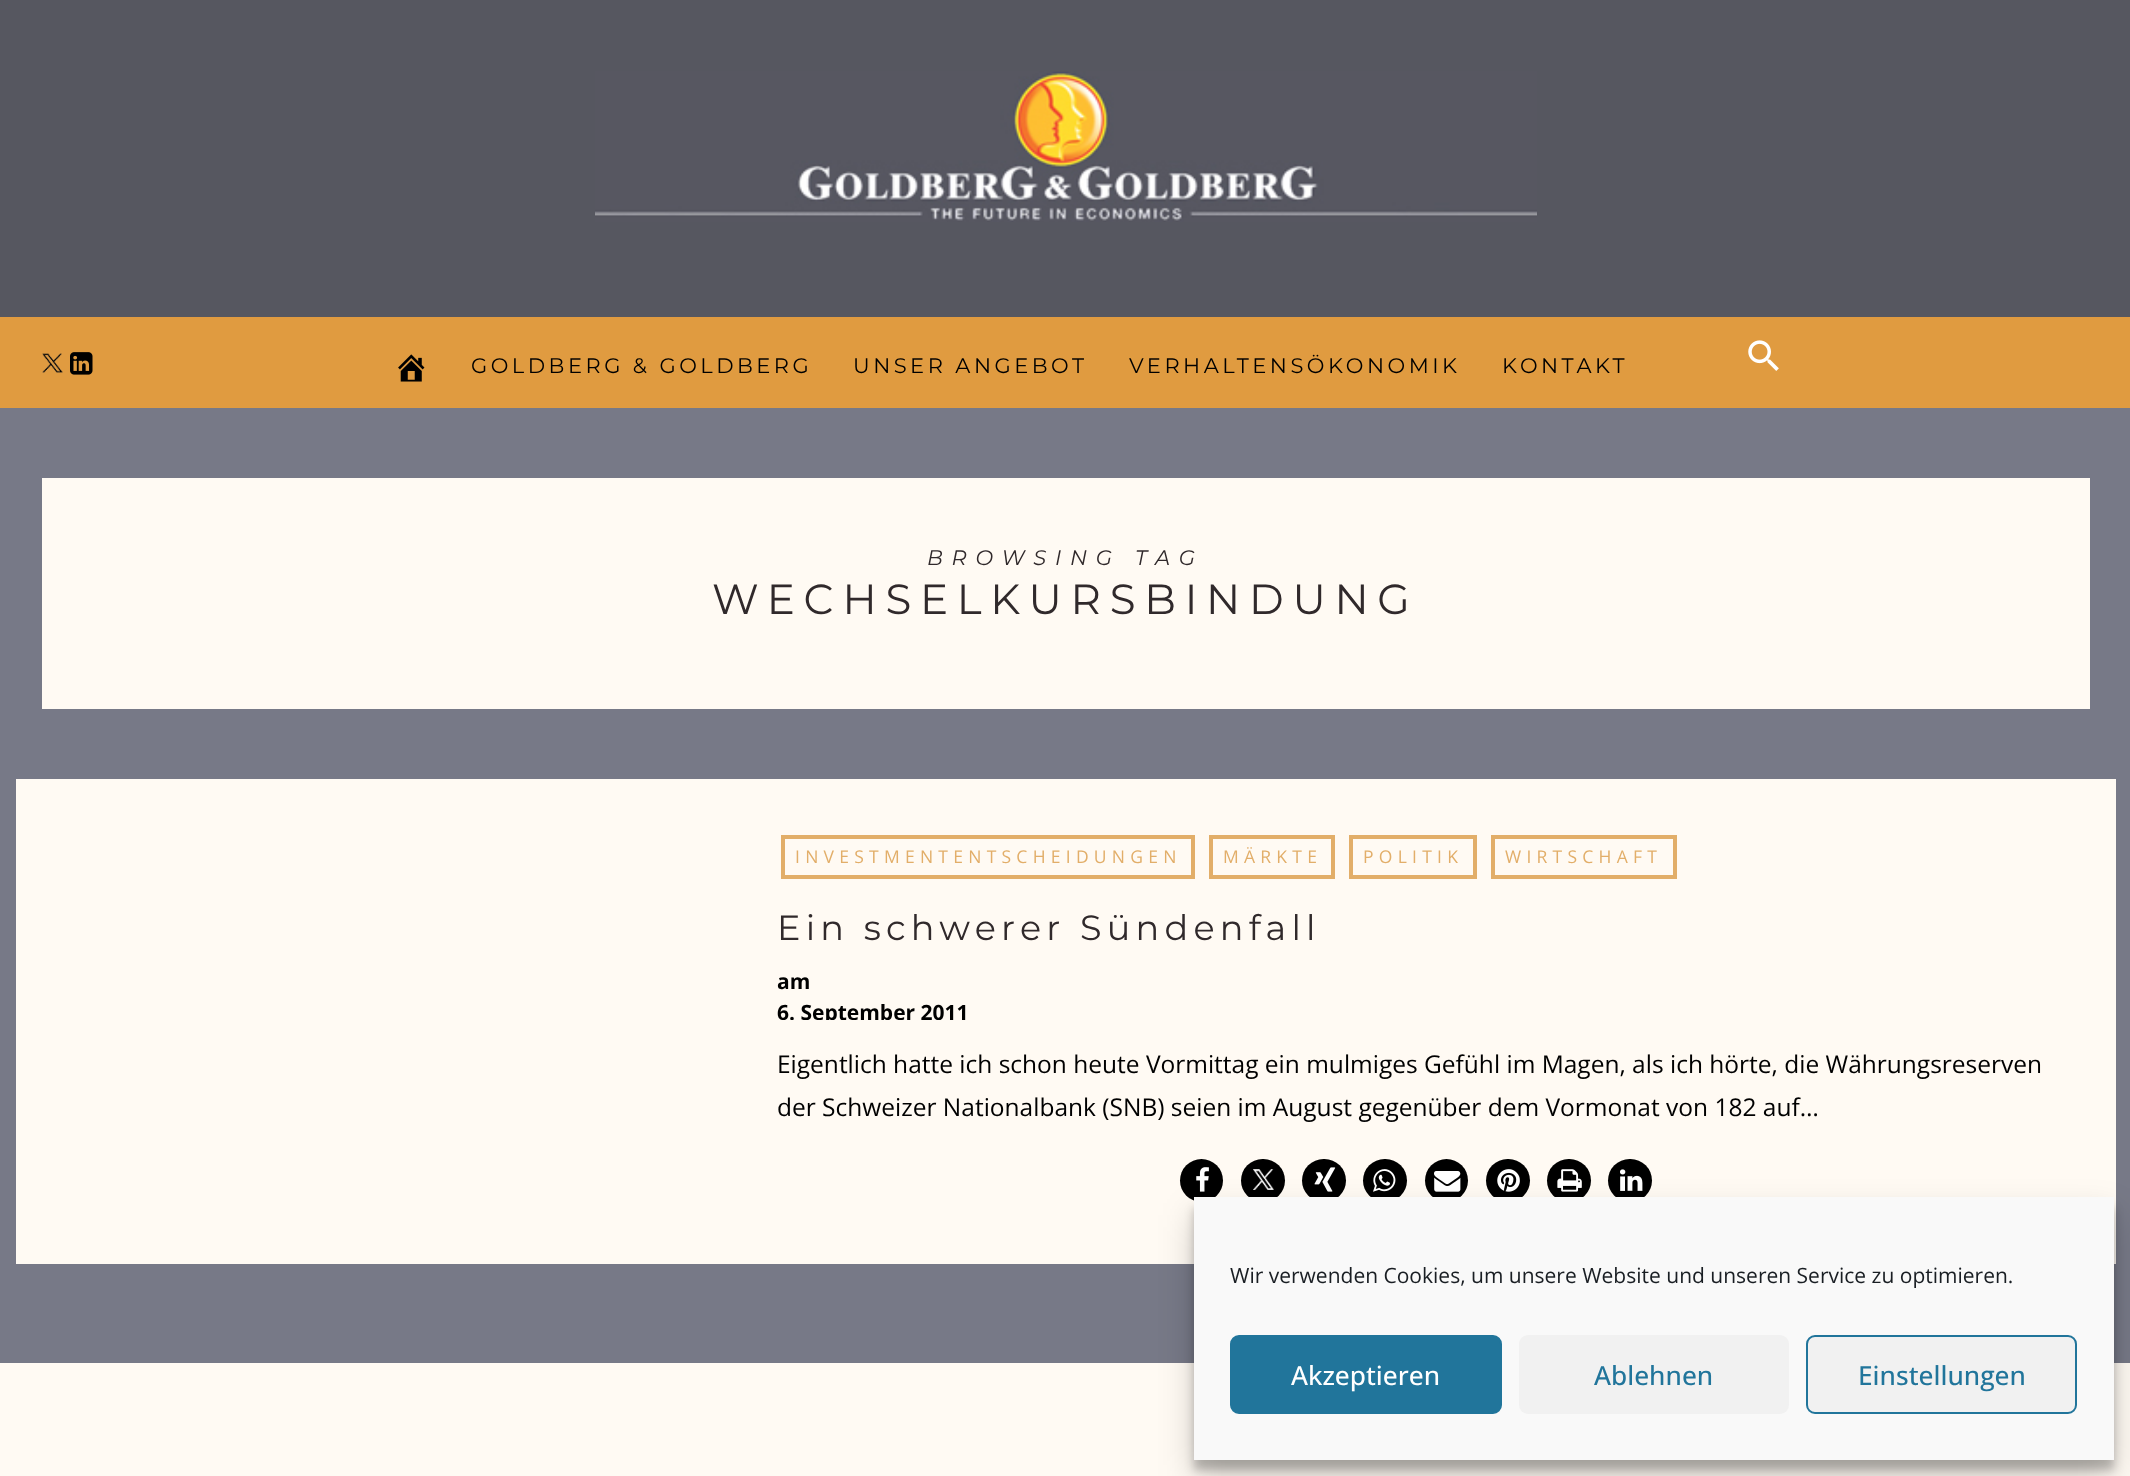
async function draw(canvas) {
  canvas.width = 2130
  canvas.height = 1476
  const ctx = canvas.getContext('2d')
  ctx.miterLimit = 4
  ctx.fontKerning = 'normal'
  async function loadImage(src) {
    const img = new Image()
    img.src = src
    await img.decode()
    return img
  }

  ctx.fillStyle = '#777987'
  ctx.fillRect(0, 0, 2130, 1476)
  ctx.fillStyle = '#565760'
  ctx.fillRect(0, 0, 2130, 317)
  ctx.drawImage(await loadImage('image0.png'), 595, 71, 942, 151)
  ctx.fillStyle = '#e09b40'
  ctx.fillRect(0, 317, 2130, 91)
  ctx.drawImage(await loadImage('image1.png'), 42, 353, 21, 20)
  ctx.drawImage(await loadImage('image2.png'), 70, 352, 23, 23)
  ctx.drawImage(await loadImage('image3.png'), 398, 354, 27, 28)
  ctx.letterSpacing = '3.5px'
  ctx.font = '100 21px Montserrat'
  ctx.fillStyle = '#000'
  ctx.fillText('GOLDBERG & GOLDBERG', 471, 373)
  ctx.fillText('UNSER ANGEBOT', 853, 373)
  ctx.fillText('VERHALTENSÖKONOMIK', 1129, 373)
  ctx.fillText('KONTAKT', 1502, 373)
  ctx.drawImage(await loadImage('image4.png'), 1748, 340, 31, 31)
  ctx.fillStyle = '#fffaf3'
  ctx.fillRect(42, 478, 2048, 231)
  ctx.letterSpacing = '8.75px'
  ctx.font = 'italic 100 21px Montserrat'
  ctx.fillStyle = '#30292b'
  ctx.fillText('BROWSING TAG', 927, 565)
  ctx.font = '100 42px Montserrat'
  ctx.fillText('WECHSELKURSBINDUNG', 712, 614)
  ctx.fillStyle = '#fffaf3'
  ctx.fillRect(16, 779, 2100, 485)
  ctx.strokeStyle = '#e2ae69'
  ctx.lineWidth = 4
  ctx.strokeRect(783, 837, 410, 40)
  ctx.letterSpacing = '5.25px'
  ctx.font = '17.5px Open Sans'
  ctx.fillStyle = '#e2ae69'
  ctx.fillText('INVESTMENTENTSCHEIDUNGEN', 795, 863)
  ctx.strokeRect(1211, 837, 122, 40)
  ctx.fillText('MÄRKTE', 1223, 863)
  ctx.strokeRect(1351, 837, 124, 40)
  ctx.fillText('POLITIK', 1363, 863)
  ctx.strokeRect(1493, 837, 182, 40)
  ctx.fillText('WIRTSCHAFT', 1505, 863)
  ctx.font = '100 35px Montserrat'
  ctx.fillStyle = '#30292b'
  ctx.fillText('Ein schwerer Sündenfall', 777, 940)
  ctx.letterSpacing = '0px'
  ctx.font = 'bold 21px Open Sans'
  ctx.fillStyle = '#000'
  ctx.fillText('am', 777, 989)
  ctx.save()
  ctx.beginPath()
  ctx.rect(777, 959, 1278, 61)
  ctx.clip()
  ctx.fillText('6. September 2011', 777, 1020)
  ctx.restore()
  ctx.font = '24.5px Open Sans'
  ctx.fillText('Eigentlich hatte ich schon heute Vormittag ein mulmiges Gefühl im Magen, als ich hörte, die Währungsreserven', 777, 1073)
  ctx.fillText('der Schweizer Nationalbank (SNB) seien im August gegenüber dem Vormonat von 182 auf…', 777, 1116)
  ctx.beginPath()
  ctx.arc(1201.5, 1180.5, 21.5, 0, 2 * Math.PI)
  ctx.fill()
  ctx.drawImage(await loadImage('image5.png'), 1196, 1167, 13, 25)
  ctx.beginPath()
  ctx.roundRect(1241, 1159, 44, 43, 21.5)
  ctx.fill()
  ctx.drawImage(await loadImage('image6.png'), 1253, 1169, 21, 21)
  ctx.beginPath()
  ctx.roundRect(1302, 1159, 44, 43, 21.5)
  ctx.fill()
  ctx.drawImage(await loadImage('image7.png'), 1314, 1167, 22, 25)
  ctx.beginPath()
  ctx.roundRect(1363, 1159, 44, 43, 21.5)
  ctx.fill()
  ctx.drawImage(await loadImage('image8.png'), 1373, 1169, 23, 23)
  ctx.beginPath()
  ctx.arc(1446.5, 1180.5, 21.5, 0, 2 * Math.PI)
  ctx.fill()
  ctx.drawImage(await loadImage('image9.png'), 1434, 1171, 27, 21)
  ctx.beginPath()
  ctx.roundRect(1486, 1159, 44, 43, 21.5)
  ctx.fill()
  ctx.drawImage(await loadImage('image10.png'), 1497, 1169, 23, 23)
  ctx.beginPath()
  ctx.roundRect(1547, 1159, 44, 43, 21.5)
  ctx.fill()
  ctx.drawImage(await loadImage('image11.png'), 1557, 1169, 25, 23)
  ctx.beginPath()
  ctx.roundRect(1608, 1159, 44, 43, 21.5)
  ctx.fill()
  ctx.drawImage(await loadImage('image12.png'), 1620, 1169, 23, 22)
  ctx.fillStyle = '#fffaf3'
  ctx.fillRect(0, 1363, 2130, 113)
  ctx.fillStyle = '#0000003b'
  ctx.filter = 'blur(5px)'
  ctx.beginPath()
  ctx.rect(1194, 1208, 920, 262)
  ctx.fill()
  ctx.filter = 'none'
  ctx.fillStyle = '#00000030'
  ctx.filter = 'blur(17.5px)'
  ctx.beginPath()
  ctx.rect(1194, 1215, 920, 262)
  ctx.fill()
  ctx.filter = 'none'
  ctx.fillStyle = '#f9f9f9'
  ctx.fillRect(1194, 1197, 920, 263)
  ctx.font = '21px Open Sans'
  ctx.fillStyle = '#191e23'
  ctx.fillText('Wir verwenden Cookies, um unsere Website und unseren Service zu optimieren.', 1230, 1283)
  ctx.fillStyle = '#21759b'
  ctx.beginPath()
  ctx.roundRect(1231, 1336, 270, 77, 8)
  ctx.fill()
  ctx.strokeStyle = '#21759b'
  ctx.lineWidth = 2
  ctx.stroke()
  ctx.font = '500 26.25px Open Sans'
  ctx.fillStyle = '#fff'
  ctx.fillText('Akzeptieren', 1291, 1385)
  ctx.fillStyle = '#f1f1f1'
  ctx.beginPath()
  ctx.roundRect(1519, 1335, 270, 79, 9)
  ctx.fill()
  ctx.fillStyle = '#21759b'
  ctx.fillText('Ablehnen', 1594, 1385)
  ctx.fillStyle = '#f1f1f1'
  ctx.beginPath()
  ctx.roundRect(1807, 1336, 269, 77, 8)
  ctx.fill()
  ctx.stroke()
  ctx.fillStyle = '#21759b'
  ctx.fillText('Einstellungen', 1858, 1385)
}

draw(document.querySelector('canvas'))
